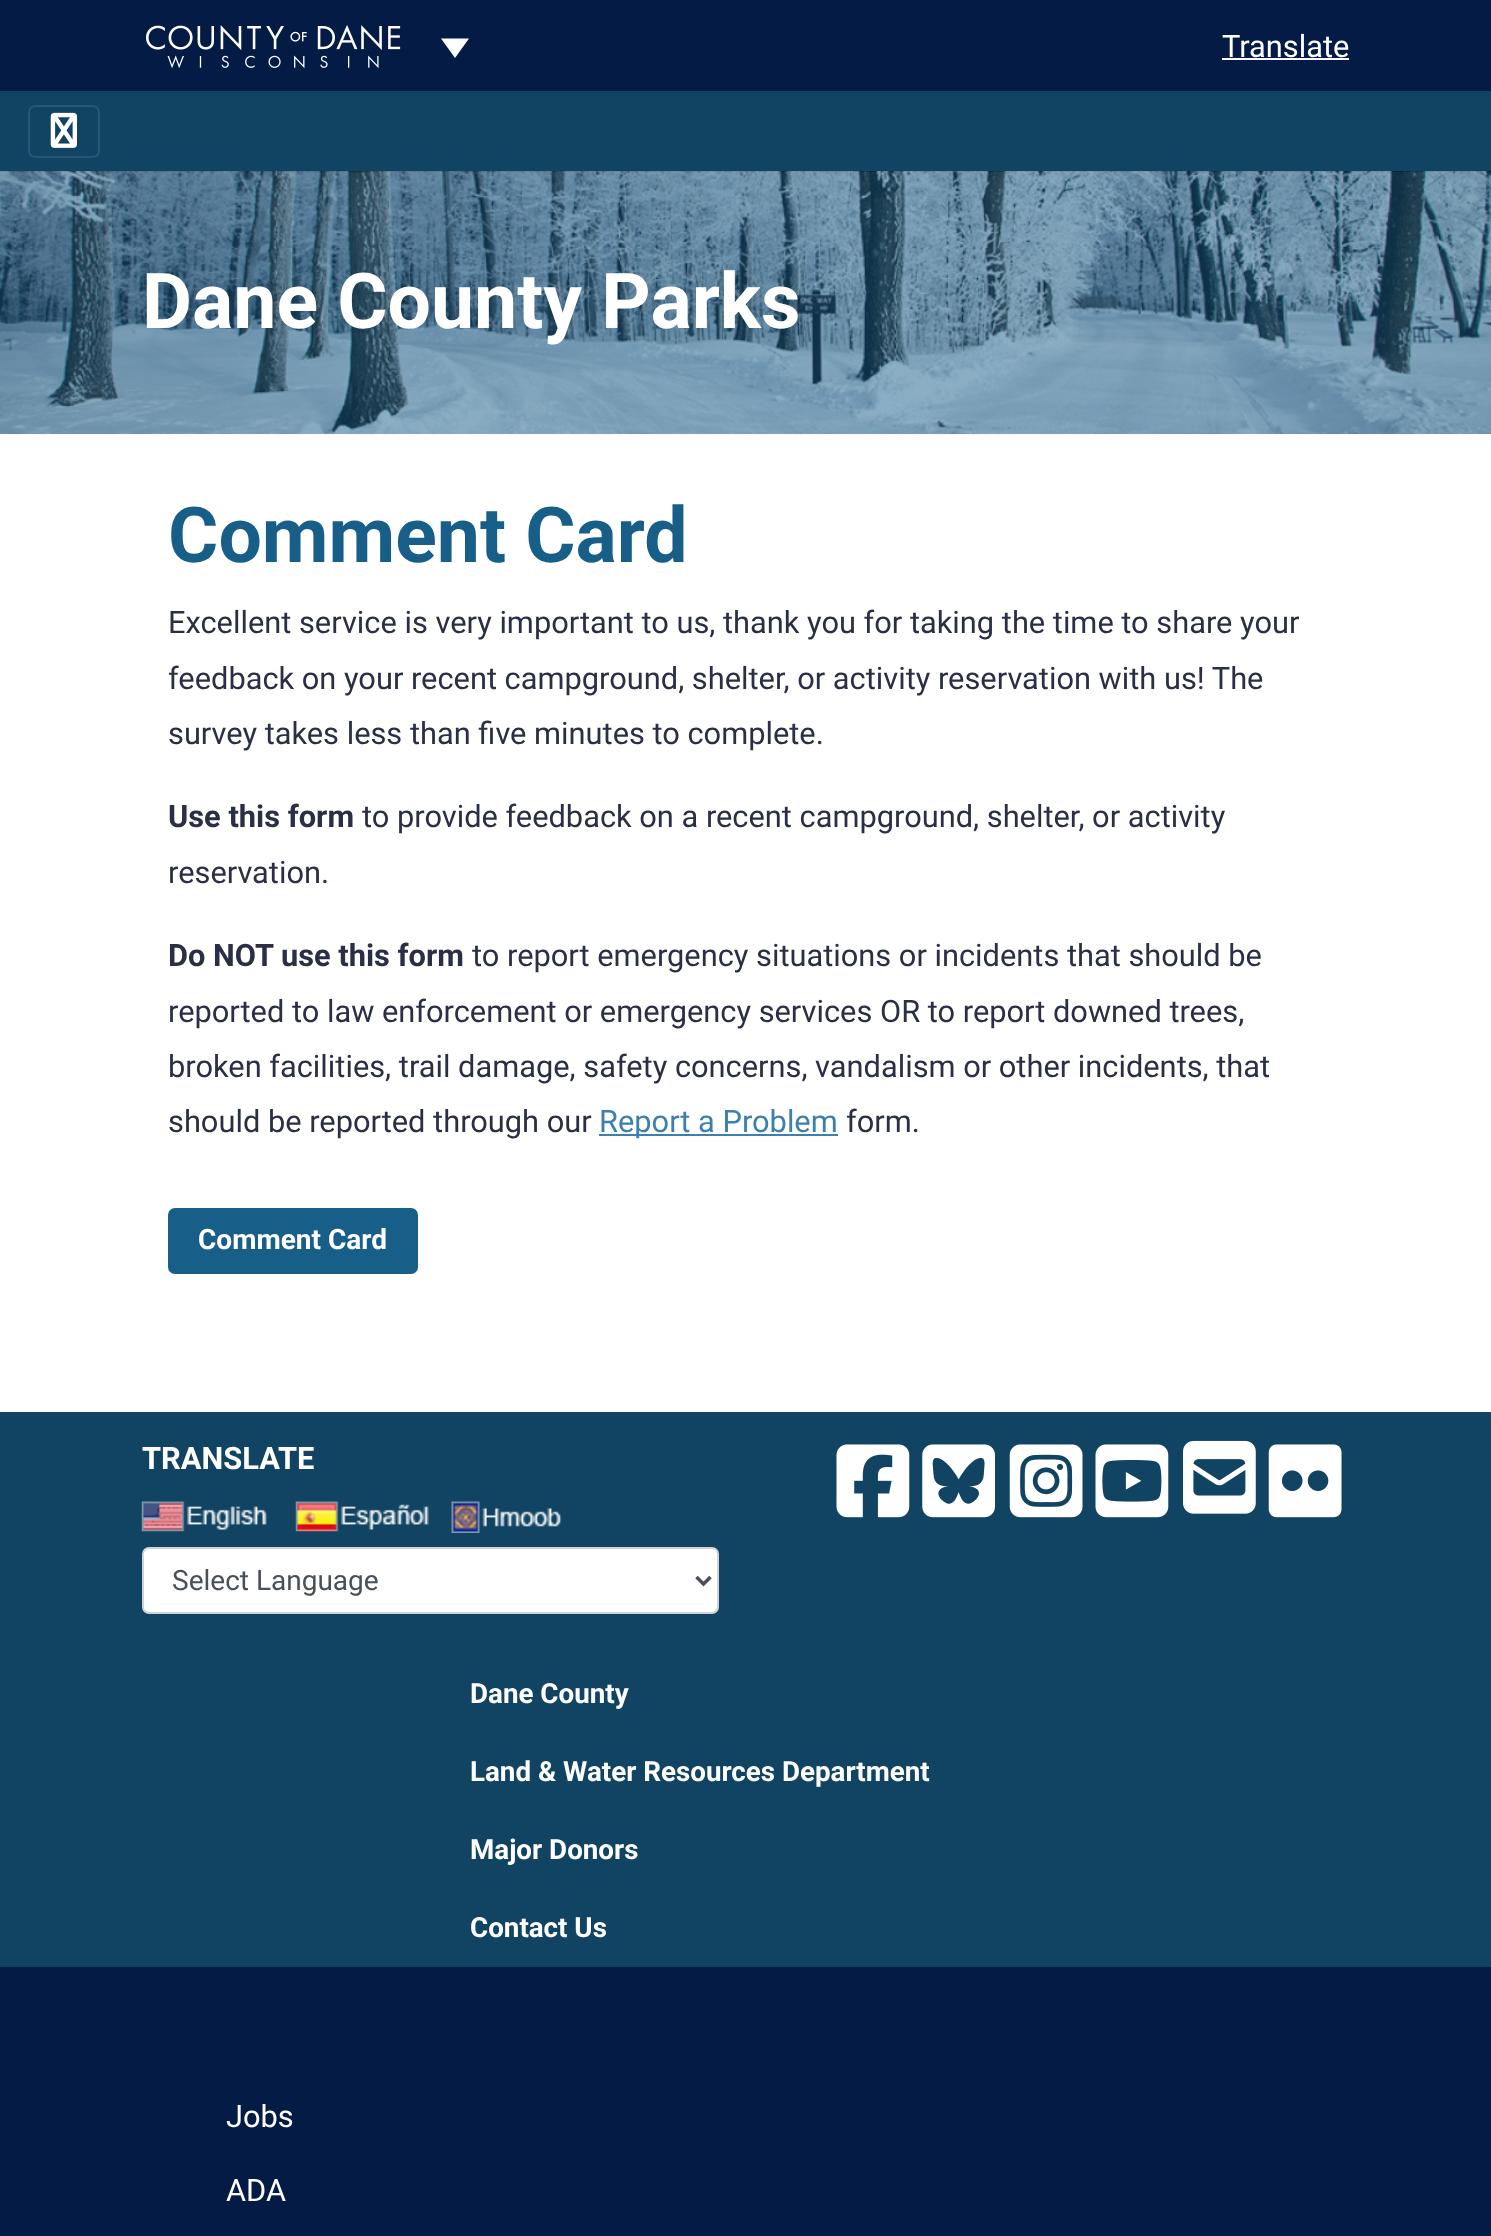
async function draw(canvas) {
  canvas.width = 1491
  canvas.height = 2236
  const ctx = canvas.getContext('2d')
  ctx.miterLimit = 4
  ctx.fontKerning = 'normal'
  async function loadImage(src) {
    const img = new Image()
    img.src = src
    await img.decode()
    return img
  }

  ctx.fillStyle = '#fff'
  ctx.fillRect(0, 0, 1491, 2236)
  ctx.fillStyle = '#041b45'
  ctx.fillRect(0, 0, 1491, 91)
  ctx.drawImage(await loadImage('image0.png'), 145, 25, 256, 44)
  ctx.fillStyle = '#fff'
  ctx.beginPath()
  ctx.moveTo(441, 38.5)
  ctx.lineTo(469, 38.5)
  ctx.lineTo(455, 58)
  ctx.closePath()
  ctx.fill()
  ctx.font = '30.8px Roboto'
  ctx.fillText('Translate', 1222, 57)
  ctx.fillRect(1222, 58, 127, 2)
  ctx.fillStyle = '#114362'
  ctx.fillRect(0, 91, 1491, 81)
  ctx.beginPath()
  ctx.roundRect(29, 106, 70, 51, 6)
  ctx.strokeStyle = '#295672'
  ctx.lineWidth = 2
  ctx.stroke()
  ctx.drawImage(await loadImage('image1.png'), 50, 112, 27, 36)
  ctx.drawImage(await loadImage('image2.png'), 0, 171, 1491, 263)
  ctx.font = 'bold 77px Roboto'
  ctx.fillStyle = '#fff'
  ctx.fillText('Dane County Parks', 142, 328)
  ctx.fillStyle = '#175e89'
  ctx.fillText('Comment Card', 168, 562)
  ctx.font = '30.8px Roboto'
  ctx.fillStyle = '#2b2f45'
  ctx.fillText('Excellent service is very important to us, thank you for taking the time to share your', 168, 633)
  ctx.fillText('feedback on your recent campground, shelter, or activity reservation with us! The', 168, 689)
  ctx.fillText('survey takes less than five minutes to complete.', 168, 744)
  ctx.font = 'bold 30.8px Roboto'
  ctx.fillText('Use this form', 168, 827)
  ctx.font = '30.8px Roboto'
  ctx.fillText('to provide feedback on a recent campground, shelter, or activity', 362, 827)
  ctx.fillText('reservation.', 168, 883)
  ctx.font = 'bold 30.8px Roboto'
  ctx.fillText('Do NOT use this form', 168, 966)
  ctx.font = '30.8px Roboto'
  ctx.fillText('to report emergency situations or incidents that should be', 472, 966)
  ctx.fillText('reported to law enforcement or emergency services OR to report downed trees,', 168, 1022)
  ctx.fillText('broken facilities, trail damage, safety concerns, vandalism or other incidents, that', 168, 1077)
  ctx.fillText('should be reported through our', 168, 1132)
  ctx.fillStyle = '#3b80af'
  ctx.fillRect(599, 1134, 239, 2)
  ctx.fillText('Report a Problem', 599, 1132)
  ctx.fillStyle = '#2b2f45'
  ctx.fillText('form.', 846, 1132)
  ctx.fillStyle = '#175e89'
  ctx.beginPath()
  ctx.roundRect(169, 1209, 248, 64, 6)
  ctx.fill()
  ctx.strokeStyle = '#175e89'
  ctx.stroke()
  ctx.font = 'bold 28px Roboto'
  ctx.fillStyle = '#fff'
  ctx.fillText('Comment Card', 198, 1249)
  ctx.fillStyle = '#114362'
  ctx.fillRect(0, 1412, 1491, 555)
  ctx.font = 'bold 30.8px Roboto'
  ctx.fillStyle = '#fff'
  ctx.fillText('TRANSLATE', 142, 1469)
  ctx.drawImage(await loadImage('image3.png'), 141, 1501, 126, 31)
  ctx.drawImage(await loadImage('image4.png'), 295, 1501, 134, 31)
  ctx.drawImage(await loadImage('image5.png'), 451, 1501, 111, 32)
  ctx.beginPath()
  ctx.roundRect(143, 1548, 575, 65, 6)
  ctx.fill()
  ctx.strokeStyle = '#ced4da'
  ctx.stroke()
  ctx.beginPath()
  ctx.moveTo(696.5, 1577)
  ctx.lineTo(703.5, 1584)
  ctx.lineTo(710.5, 1577)
  ctx.strokeStyle = '#495057'
  ctx.lineWidth = 3.5
  ctx.stroke()
  ctx.font = '28px Roboto'
  ctx.fillStyle = '#495057'
  ctx.fillText('Select Language', 172, 1590)
  ctx.drawImage(await loadImage('image6.png'), 836, 1444, 74, 74)
  ctx.drawImage(await loadImage('image7.png'), 922, 1444, 73, 74)
  ctx.drawImage(await loadImage('image8.png'), 1009, 1444, 74, 74)
  ctx.drawImage(await loadImage('image9.png'), 1095, 1444, 74, 74)
  ctx.drawImage(await loadImage('image10.png'), 1183, 1440, 73, 74)
  ctx.drawImage(await loadImage('image11.png'), 1268, 1444, 74, 74)
  ctx.font = 'bold 27.75px Roboto'
  ctx.fillStyle = '#fff'
  ctx.fillText('Dane County', 470, 1703)
  ctx.fillText('Land & Water Resources Department', 470, 1781)
  ctx.fillText('Major Donors', 470, 1859)
  ctx.fillText('Contact Us', 470, 1937)
  ctx.fillStyle = '#041b45'
  ctx.fillRect(0, 1967, 1491, 269)
  ctx.font = '30.8px Roboto'
  ctx.fillStyle = '#fff'
  ctx.fillText('Jobs', 226, 2127)
  ctx.fillText('ADA', 226, 2201)
}

draw(document.querySelector('canvas'))
